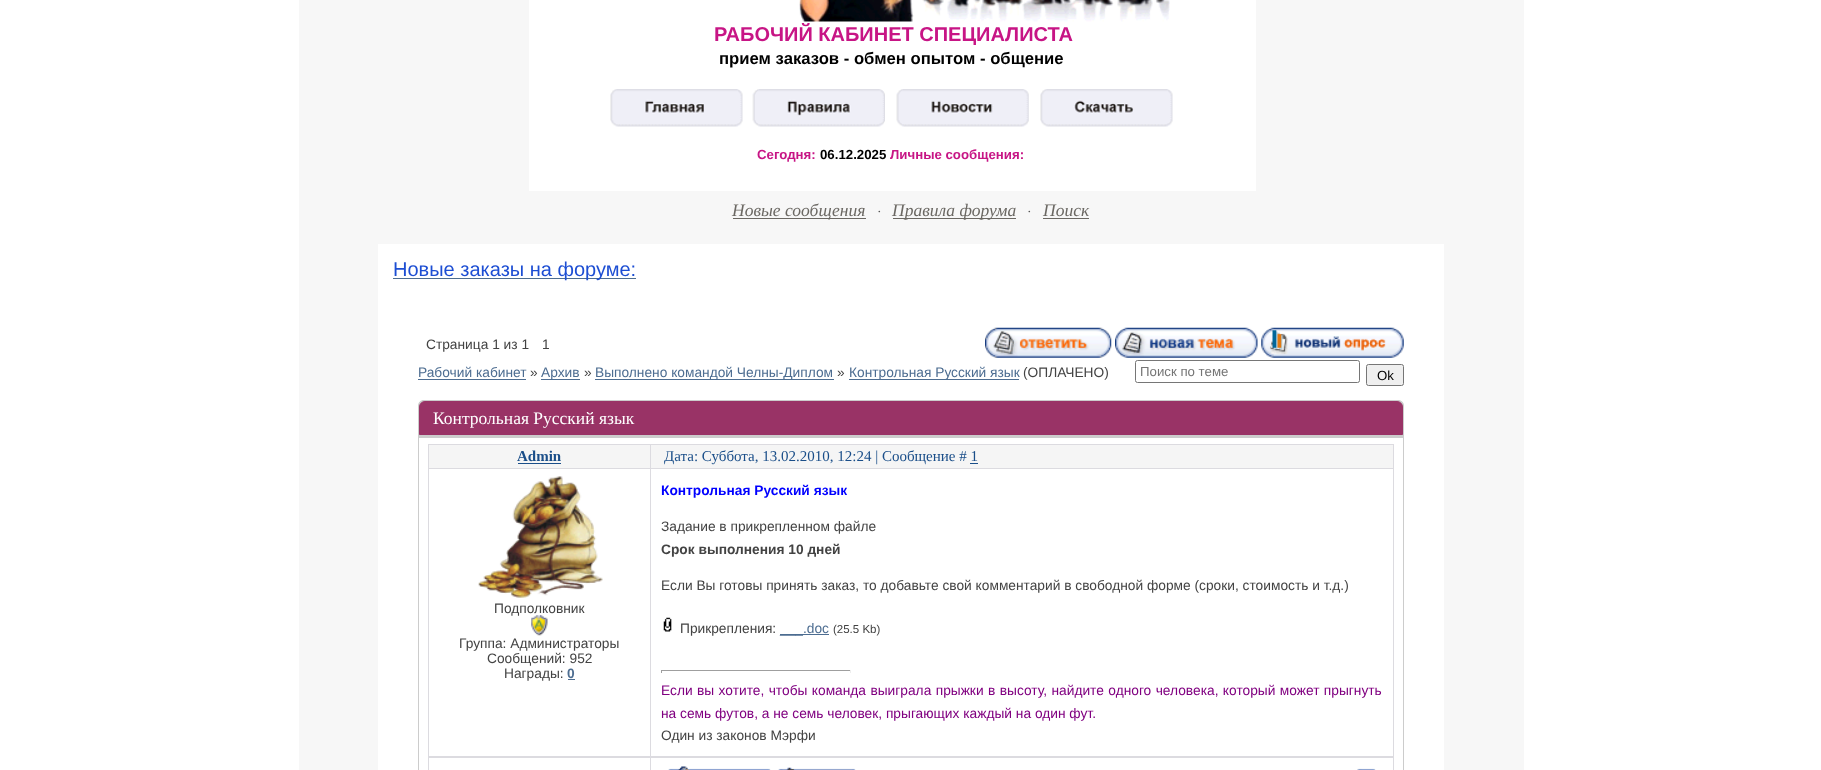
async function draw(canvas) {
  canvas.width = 1821
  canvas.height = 770
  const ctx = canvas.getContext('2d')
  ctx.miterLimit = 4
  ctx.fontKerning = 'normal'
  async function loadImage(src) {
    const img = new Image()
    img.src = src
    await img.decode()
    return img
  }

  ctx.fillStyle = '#fff'
  ctx.fillRect(0, 0, 1821, 770)
  ctx.fillStyle = '#f7f7f7'
  ctx.fillRect(299, 0, 230, 191)
  ctx.drawImage(await loadImage('image0.png'), 799, 0, 371, 22)
  ctx.fillRect(1256, 0, 268, 191)
  ctx.font = 'bold 20px Liberation Sans'
  ctx.fillStyle = '#c71585'
  ctx.fillText('РАБОЧИЙ КАБИНЕТ СПЕЦИАЛИСТА', 714, 41)
  ctx.font = 'bold 16.7px Liberation Sans'
  ctx.fillStyle = '#000'
  ctx.fillText('прием заказов - обмен опытом - общение', 719, 64)
  ctx.drawImage(await loadImage('image1.png'), 610, 89, 133, 38)
  ctx.drawImage(await loadImage('image2.png'), 752, 89, 133, 38)
  ctx.drawImage(await loadImage('image3.png'), 896, 89, 133, 38)
  ctx.drawImage(await loadImage('image4.png'), 1040, 89, 133, 38)
  ctx.font = 'bold 13.25px Liberation Sans'
  ctx.fillStyle = '#c71585'
  ctx.fillText('Сегодня:', 757, 159)
  ctx.fillStyle = '#000'
  ctx.fillText('06.12.2025', 820, 159)
  ctx.fillStyle = '#c71585'
  ctx.fillText('Личные сообщения:', 890, 159)
  ctx.fillStyle = '#f7f7f7'
  ctx.fillRect(299, 191, 1225, 579)
  ctx.fillStyle = '#6b6863'
  ctx.fillRect(733, 218, 133, 1)
  ctx.font = 'italic 17.5px Liberation Serif'
  ctx.fillText('Новые сообщения', 732, 216)
  ctx.font = '13.75px Liberation Serif'
  ctx.fillStyle = '#555'
  ctx.fillText('·', 877, 216)
  ctx.fillStyle = '#6b6863'
  ctx.fillRect(893, 218, 123, 1)
  ctx.font = 'italic 17.5px Liberation Serif'
  ctx.fillText('Правила форума', 892, 216)
  ctx.font = '13.75px Liberation Serif'
  ctx.fillStyle = '#555'
  ctx.fillText('·', 1027, 216)
  ctx.font = 'italic 17.5px Liberation Serif'
  ctx.fillStyle = '#6b6863'
  ctx.fillText('Поиск', 1043, 216)
  ctx.fillRect(1043, 218, 46, 1)
  ctx.fillStyle = '#fff'
  ctx.fillRect(378, 244, 1066, 526)
  ctx.fillStyle = '#4d6d91'
  ctx.fillRect(393, 278, 243, 1)
  ctx.font = '20px Liberation Sans'
  ctx.fillStyle = '#1d4ed3'
  ctx.fillText('Новые заказы на форуме:', 393, 276)
  ctx.font = '13.75px Liberation Sans'
  ctx.fillStyle = '#434343'
  ctx.fillText('Страница 1 из 1', 426, 349)
  ctx.fillText('1', 542, 349)
  ctx.drawImage(await loadImage('image5.png'), 985, 327, 127, 31)
  ctx.drawImage(await loadImage('image6.png'), 1115, 327, 143, 31)
  ctx.drawImage(await loadImage('image7.png'), 1261, 327, 143, 31)
  ctx.fillStyle = '#4d6d91'
  ctx.fillText('Рабочий кабинет', 418, 377)
  ctx.fillRect(418, 379, 108, 1)
  ctx.fillStyle = '#434343'
  ctx.fillText('»', 530, 377)
  ctx.fillStyle = '#4d6d91'
  ctx.fillRect(541, 379, 39, 1)
  ctx.fillText('Архив', 541, 377)
  ctx.fillStyle = '#434343'
  ctx.fillText('»', 584, 377)
  ctx.fillStyle = '#4d6d91'
  ctx.fillRect(595, 379, 239, 1)
  ctx.fillText('Выполнено командой Челны-Диплом', 595, 377)
  ctx.fillStyle = '#434343'
  ctx.fillText('»', 837, 377)
  ctx.fillStyle = '#4d6d91'
  ctx.fillRect(849, 379, 170, 1)
  ctx.fillText('Контрольная Русский язык', 849, 377)
  ctx.fillStyle = '#434343'
  ctx.fillText('(ОПЛАЧЕНО)', 1023, 377)
  ctx.beginPath()
  ctx.roundRect(1135.5, 360.5, 224, 22, 2)
  ctx.strokeStyle = '#767676'
  ctx.stroke()
  ctx.font = '13.25px Liberation Sans'
  ctx.fillStyle = '#757575'
  ctx.fillText('Поиск по теме', 1140, 376)
  ctx.fillStyle = '#efefef'
  ctx.beginPath()
  ctx.roundRect(1366.5, 364.5, 37, 21, 2)
  ctx.fill()
  ctx.stroke()
  ctx.fillStyle = '#000'
  ctx.fillText('Ok', 1377, 380)
  ctx.fillStyle = '#ccc'
  ctx.beginPath()
  ctx.moveTo(424, 400)
  ctx.lineTo(1398, 400)
  ctx.bezierCurveTo(1401.5, 400, 1404, 402.5, 1404, 406)
  ctx.lineTo(1404, 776)
  ctx.lineTo(418, 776)
  ctx.lineTo(418, 406)
  ctx.bezierCurveTo(418, 402.5, 420.5, 400, 424, 400)
  ctx.closePath()
  ctx.fill()
  ctx.fillStyle = '#936'
  ctx.beginPath()
  ctx.roundRect(419.5, 401.5, 983, 33, [5.5, 5.5, 0, 0])
  ctx.fill()
  ctx.strokeStyle = '#936'
  ctx.stroke()
  ctx.font = '17.5px Liberation Serif'
  ctx.fillStyle = '#fff'
  ctx.fillText('Контрольная Русский язык', 433, 424)
  ctx.fillRect(419, 438, 984, 332)
  ctx.fillStyle = '#dcdbe0'
  ctx.fillRect(428, 444, 966, 326)
  ctx.fillStyle = '#f5f5f5'
  ctx.fillRect(429, 445, 221, 23)
  ctx.font = 'bold 15px Liberation Serif'
  ctx.fillStyle = '#1a4e89'
  ctx.fillText('Admin', 517, 461)
  ctx.fillRect(518, 463, 43, 1)
  ctx.fillStyle = '#f5f5f5'
  ctx.fillRect(651, 445, 742, 23)
  ctx.font = '15px Liberation Serif'
  ctx.fillStyle = '#1a4e89'
  ctx.fillText('Дата: Суббота, 13.02.2010, 12:24 | Сообщение # 1', 664, 461)
  ctx.fillRect(970, 463, 8, 1)
  ctx.fillStyle = '#fff'
  ctx.fillRect(429, 469, 221, 287)
  ctx.drawImage(await loadImage('image8.png'), 478, 476, 125, 122)
  ctx.font = '13.75px Liberation Sans'
  ctx.fillStyle = '#434343'
  ctx.fillText('Подполковник', 494, 613)
  ctx.drawImage(await loadImage('image9.png'), 531, 615, 17, 21)
  ctx.fillText('Группа: Администраторы', 459, 648)
  ctx.fillText('Сообщений: 952', 487, 663)
  ctx.fillText('Награды:', 504, 678)
  ctx.font = 'bold 13.75px Liberation Sans'
  ctx.fillStyle = '#4d6d91'
  ctx.fillText('0', 567, 678)
  ctx.fillRect(568, 679, 7, 1)
  ctx.fillStyle = '#fff'
  ctx.fillRect(651, 469, 742, 287)
  ctx.fillStyle = '#00f'
  ctx.fillText('Контрольная Русский язык', 661, 495)
  ctx.font = '13.75px Liberation Sans'
  ctx.fillStyle = '#434343'
  ctx.fillText('Задание в прикрепленном файле', 661, 531)
  ctx.font = 'bold 13.75px Liberation Sans'
  ctx.fillText('Срок выполнения 10 дней', 661, 554)
  ctx.font = '13.75px Liberation Sans'
  ctx.fillText('Если Вы готовы принять заказ, то добавьте свой комментарий в свободной форме (сроки, стоимость и т.д.)', 661, 590)
  ctx.drawImage(await loadImage('image10.png'), 663, 617, 9, 15)
  ctx.fillText('Прикрепления:', 680, 633)
  ctx.fillStyle = '#4d6d91'
  ctx.fillRect(780, 634, 49, 1)
  ctx.fillText('___.doc', 780, 633)
  ctx.font = '11.5px Liberation Sans'
  ctx.fillStyle = '#434343'
  ctx.fillText('(25.5 Kb)', 833, 633)
  ctx.fillStyle = '#9f9f9f'
  ctx.fillRect(661, 670, 190, 1)
  ctx.fillStyle = '#eee'
  ctx.fillRect(850, 670, 1, 3)
  ctx.fillStyle = '#9f9f9f'
  ctx.fillRect(661, 670, 1, 3)
  ctx.wordSpacing = '0.6px'
  ctx.font = '13.75px Liberation Sans'
  ctx.fillStyle = '#800080'
  ctx.fillText('Если вы хотите, чтобы команда выиграла прыжки в высоту, найдите одного человека, который может прыгнуть', 661, 695)
  ctx.wordSpacing = '0px'
  ctx.fillText('на семь футов, а не семь человек, прыгающих каждый на один фут.', 661, 718)
  ctx.fillStyle = '#434343'
  ctx.fillText('Один из законов Мэрфи', 661, 740)
  ctx.fillStyle = '#fff'
  ctx.fillRect(429, 758, 221, 12)
  ctx.fillRect(651, 758, 742, 12)
  ctx.drawImage(await loadImage('image11.png'), 668, 766, 103, 4)
  ctx.drawImage(await loadImage('image12.png'), 778, 767, 78, 3)
  ctx.drawImage(await loadImage('image13.png'), 1357, 768, 19, 2)
}

draw(document.querySelector('canvas'))
